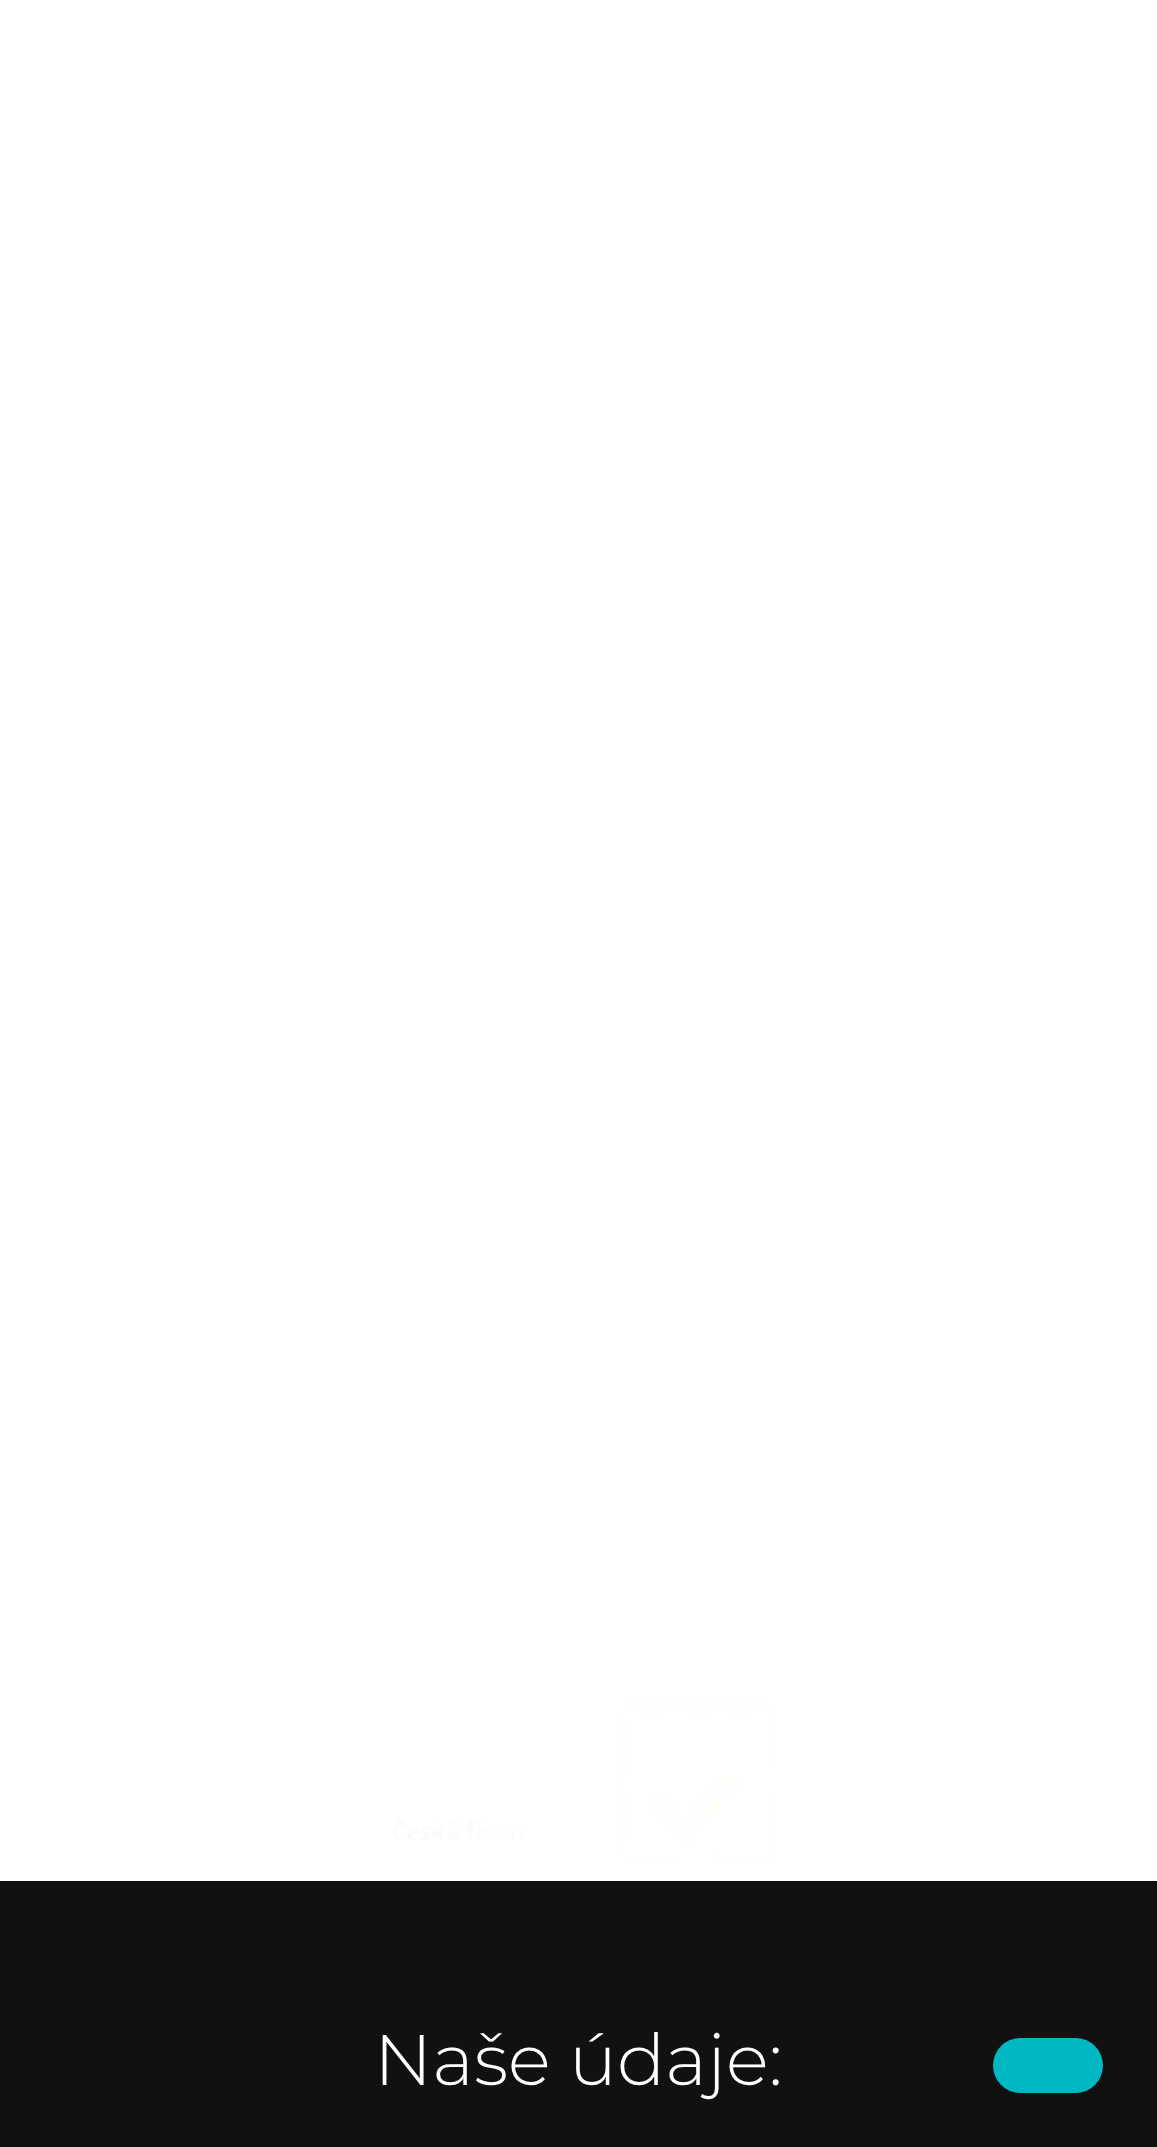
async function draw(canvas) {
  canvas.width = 1157
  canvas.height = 2147
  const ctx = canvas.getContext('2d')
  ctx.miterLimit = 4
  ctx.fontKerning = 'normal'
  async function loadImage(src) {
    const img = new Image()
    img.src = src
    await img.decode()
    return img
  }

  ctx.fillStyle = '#fff'
  ctx.fillRect(0, 0, 1157, 2147)
  ctx.drawImage(await loadImage('image0.png'), 393, 1819, 133, 21)
  ctx.drawImage(await loadImage('image1.png'), 616, 1703, 160, 161)
  ctx.fillStyle = '#111'
  ctx.fillRect(0, 1881, 1157, 266)
  ctx.font = '300 71.5px Montserrat'
  ctx.fillStyle = '#fff'
  ctx.fillText('Naše údaje:', 374, 2085)
  ctx.fillStyle = '#00b8c3'
  ctx.beginPath()
  ctx.roundRect(993, 2038, 110, 55, 27.5)
  ctx.fill()
}

draw(document.querySelector('canvas'))
